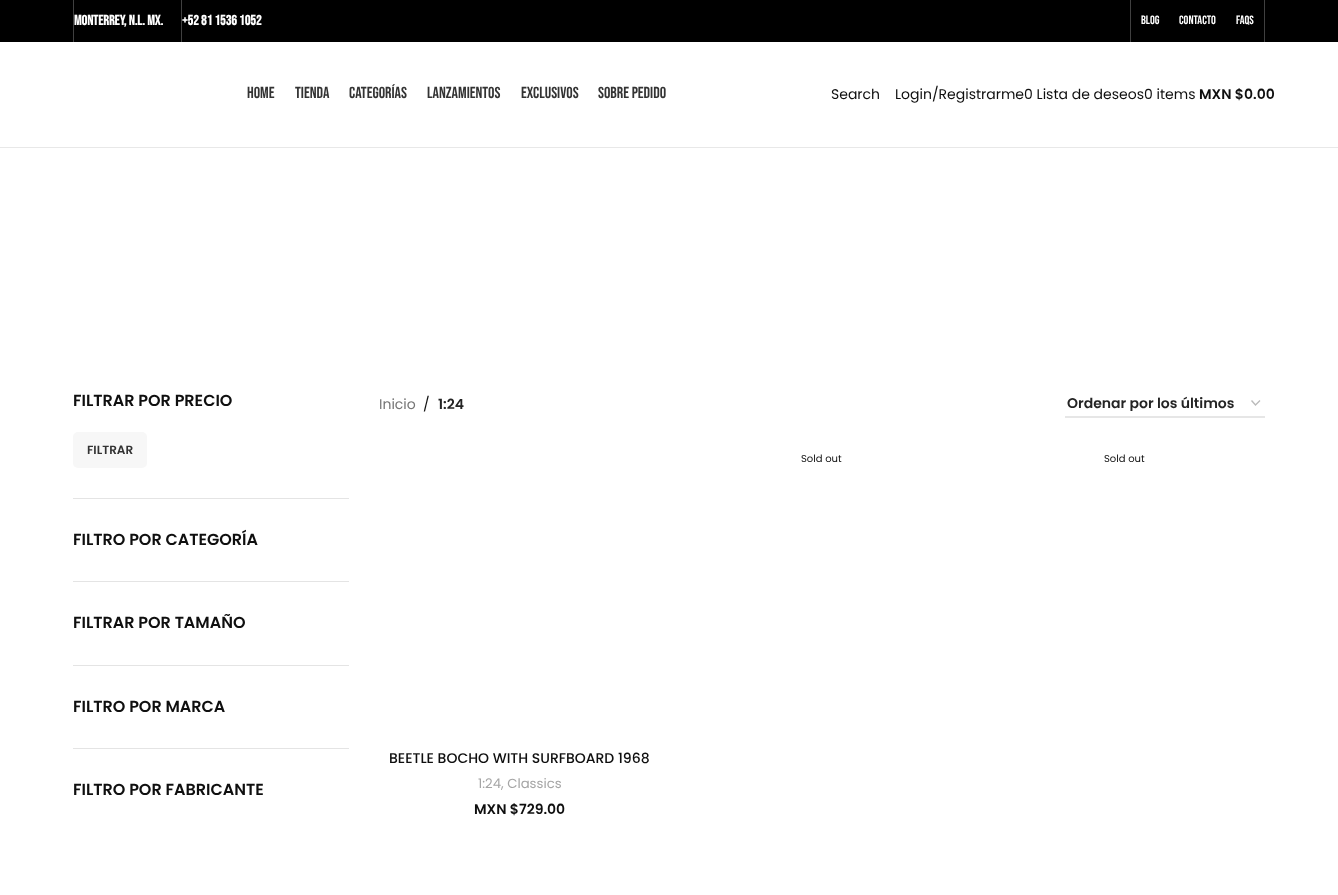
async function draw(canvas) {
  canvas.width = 1338
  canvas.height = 895
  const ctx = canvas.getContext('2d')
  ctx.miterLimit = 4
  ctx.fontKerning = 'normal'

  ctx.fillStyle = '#fff'
  ctx.fillRect(0, 0, 1338, 895)
  ctx.fillStyle = '#000'
  ctx.fillRect(0, 0, 1338, 42)
  ctx.fillStyle = '#404040'
  ctx.fillRect(73, 0, 1, 42)
  ctx.font = 'bold 14px Bebas Neue'
  ctx.fillStyle = '#fff'
  ctx.fillText('Monterrey, N.L. Mx.', 74, 25)
  ctx.fillStyle = '#404040'
  ctx.fillRect(181, 0, 1, 42)
  ctx.fillStyle = '#fff'
  ctx.fillText('+52 81 1536 1052', 182, 25)
  ctx.fillStyle = '#404040'
  ctx.fillRect(1130, 0, 1, 42)
  ctx.font = '12px Bebas Neue'
  ctx.fillStyle = '#fff'
  ctx.fillText('BLOG', 1141, 24)
  ctx.fillText('CONTACTO', 1179, 24)
  ctx.fillText('FAQS', 1236, 24)
  ctx.fillStyle = '#404040'
  ctx.fillRect(1264, 0, 1, 42)
  ctx.fillStyle = '#e8e8e8'
  ctx.fillRect(0, 147, 1338, 1)
  ctx.font = '16px Bebas Neue'
  ctx.fillStyle = '#333'
  ctx.fillText('HOME', 247, 98)
  ctx.fillText('TIENDA', 295, 98)
  ctx.fillText('CATEGORÍAS', 349, 98)
  ctx.fillText('LANZAMIENTOS', 427, 98)
  ctx.fillText('EXCLUSIVOS', 521, 98)
  ctx.fillText('SOBRE PEDIDO', 598, 98)
  ctx.font = '14px Poppins'
  ctx.fillStyle = '#0f0f0f'
  ctx.fillText('Search', 831, 99)
  ctx.fillText('Login/Registrarme0 Lista de deseos0 items', 895, 99)
  ctx.font = '600 14px Poppins'
  ctx.fillText('MXN $0.00', 1199, 99)
  ctx.fillStyle = '#e4e4e4'
  ctx.fillRect(73, 498, 276, 1)
  ctx.font = '600 16px Poppins'
  ctx.fillStyle = '#0f0f0f'
  ctx.fillText('FILTRAR POR PRECIO', 73, 406)
  ctx.fillStyle = '#f7f7f7'
  ctx.beginPath()
  ctx.roundRect(73, 432, 74, 36, 5)
  ctx.fill()
  ctx.font = '600 12px Poppins'
  ctx.fillStyle = '#333'
  ctx.fillText('FILTRAR', 87, 454)
  ctx.fillStyle = '#e4e4e4'
  ctx.fillRect(73, 581, 276, 1)
  ctx.font = '600 16px Poppins'
  ctx.fillStyle = '#0f0f0f'
  ctx.fillText('FILTRO POR CATEGORÍA', 73, 545)
  ctx.fillStyle = '#e4e4e4'
  ctx.fillRect(73, 665, 276, 1)
  ctx.fillStyle = '#0f0f0f'
  ctx.fillText('FILTRAR POR TAMAÑO', 73, 628)
  ctx.fillStyle = '#e4e4e4'
  ctx.fillRect(73, 748, 276, 1)
  ctx.fillStyle = '#0f0f0f'
  ctx.fillText('FILTRO POR MARCA', 73, 712)
  ctx.fillText('FILTRO POR FABRICANTE', 73, 795)
  ctx.font = '14px Poppins'
  ctx.fillStyle = '#767676'
  ctx.fillText('Inicio', 379, 409)
  ctx.fillStyle = '#0f0f0f'
  ctx.fillText('/', 423, 409)
  ctx.font = '600 14px Poppins'
  ctx.fillStyle = '#242424'
  ctx.fillText('1:24', 438, 409)
  ctx.beginPath()
  ctx.moveTo(1251.5, 400.5)
  ctx.lineTo(1255.5, 405)
  ctx.lineTo(1260, 400.5)
  ctx.strokeStyle = '#bbb'
  ctx.lineWidth = 1.4
  ctx.stroke()
  ctx.fillStyle = '#e6e6e6'
  ctx.fillRect(1065, 416, 200, 2)
  ctx.save()
  ctx.beginPath()
  ctx.rect(1067, 395, 178, 16)
  ctx.clip()
  ctx.fillStyle = '#242424'
  ctx.fillText('Ordenar por los últimos', 1067, 408)
  ctx.restore()
  ctx.font = '10px Poppins'
  ctx.fillStyle = '#0f0f0f'
  ctx.fillText('Sold out', 801, 462)
  ctx.fillText('Sold out', 1104, 462)
  ctx.font = '500 14px Poppins'
  ctx.fillText('BEETLE BOCHO WITH SURFBOARD 1968', 389, 763)
  ctx.font = '13.25px Poppins'
  ctx.fillStyle = '#a5a5a5'
  ctx.fillText('1:24, Classics', 478, 788)
  ctx.font = '600 14px Poppins'
  ctx.fillStyle = '#0f0f0f'
  ctx.fillText('MXN $729.00', 474, 814)
}

draw(document.querySelector('canvas'))
